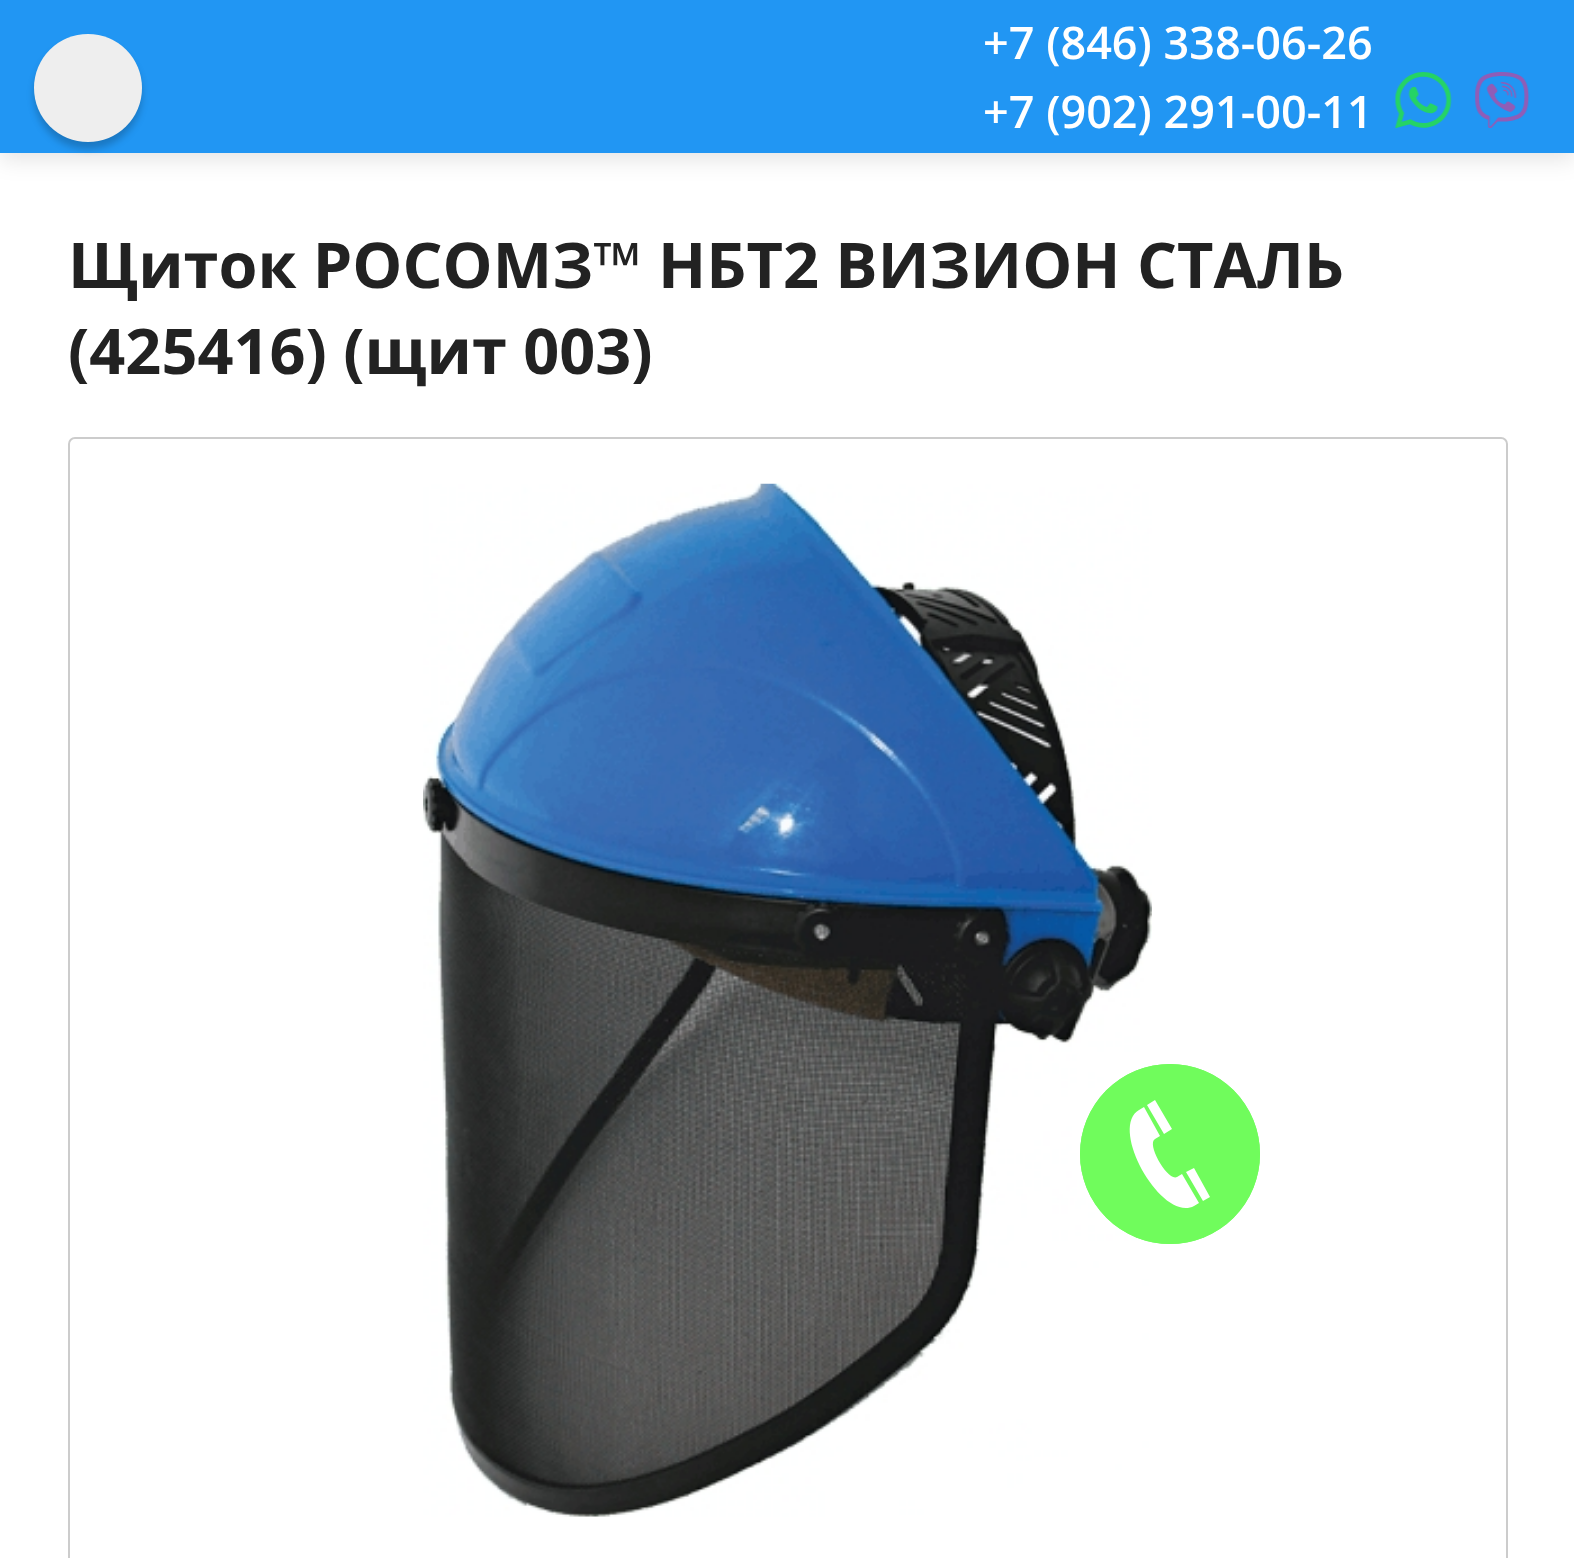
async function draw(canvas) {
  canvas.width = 1574
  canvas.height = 1558
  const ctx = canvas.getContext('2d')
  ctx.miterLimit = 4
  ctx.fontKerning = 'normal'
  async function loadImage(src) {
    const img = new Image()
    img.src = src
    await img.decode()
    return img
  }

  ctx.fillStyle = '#fff'
  ctx.fillRect(0, 0, 1574, 1558)
  ctx.fillStyle = '#0000001a'
  ctx.filter = 'blur(11px)'
  ctx.beginPath()
  ctx.rect(0, 7, 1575, 153)
  ctx.fill()
  ctx.filter = 'none'
  ctx.fillStyle = '#2196f3'
  ctx.fillRect(0, 0, 1574, 153)
  ctx.fillStyle = '#00000033'
  ctx.filter = 'blur(3.5px)'
  ctx.beginPath()
  ctx.roundRect(34, 41, 108, 108, 54)
  ctx.fill()
  ctx.filter = 'none'
  ctx.fillStyle = '#eee'
  ctx.beginPath()
  ctx.arc(88, 88, 54, 0, 2 * Math.PI)
  ctx.fill()
  ctx.font = '600 45px Open Sans'
  ctx.fillStyle = '#fff'
  ctx.fillText('+7 (846) 338-06-26', 983, 59)
  ctx.fillText('+7 (902) 291-00-11', 983, 128)
  ctx.drawImage(await loadImage('image0.png'), 1395, 72, 57, 56)
  ctx.drawImage(await loadImage('image1.png'), 1475, 72, 55, 56)
  ctx.beginPath()
  ctx.roundRect(69, 438, 1438, 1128, 6)
  ctx.strokeStyle = '#ccc'
  ctx.lineWidth = 2
  ctx.stroke()
  ctx.drawImage(await loadImage('image2.png'), 423, 483, 729, 1034)
  ctx.beginPath()
  ctx.arc(1170, 1154, 89, 0, 2 * Math.PI)
  ctx.strokeStyle = '#70fc5c'
  ctx.stroke()
  ctx.fillStyle = '#70fc5c'
  ctx.beginPath()
  ctx.arc(1170, 1154, 90, 0, 2 * Math.PI)
  ctx.fill()
  ctx.fillStyle = '#fff'
  ctx.beginPath()
  ctx.moveTo(1199, 1203)
  ctx.lineTo(1194, 1206)
  ctx.bezierCurveTo(1162, 1223, 1108, 1128, 1139, 1110)
  ctx.lineTo(1144, 1107)
  ctx.lineTo(1160, 1136)
  ctx.lineTo(1155, 1139)
  ctx.bezierCurveTo(1146, 1144, 1168, 1182, 1177, 1177)
  ctx.lineTo(1182, 1174)
  ctx.closePath()
  ctx.moveTo(1155, 1100)
  ctx.lineTo(1147, 1105)
  ctx.lineTo(1164, 1134)
  ctx.lineTo(1172, 1129)
  ctx.closePath()
  ctx.moveTo(1194, 1168)
  ctx.lineTo(1186, 1172)
  ctx.lineTo(1203, 1201)
  ctx.lineTo(1210, 1197)
  ctx.closePath()
  ctx.fill()
  ctx.font = 'bold 63px Open Sans'
  ctx.fillStyle = '#222'
  ctx.fillText('Щиток РОСОМЗ™ НБТ2 ВИЗИОН СТАЛЬ', 68, 288)
  ctx.fillText('(425416) (щит 003)', 68, 374)
}

draw(document.querySelector('canvas'))
